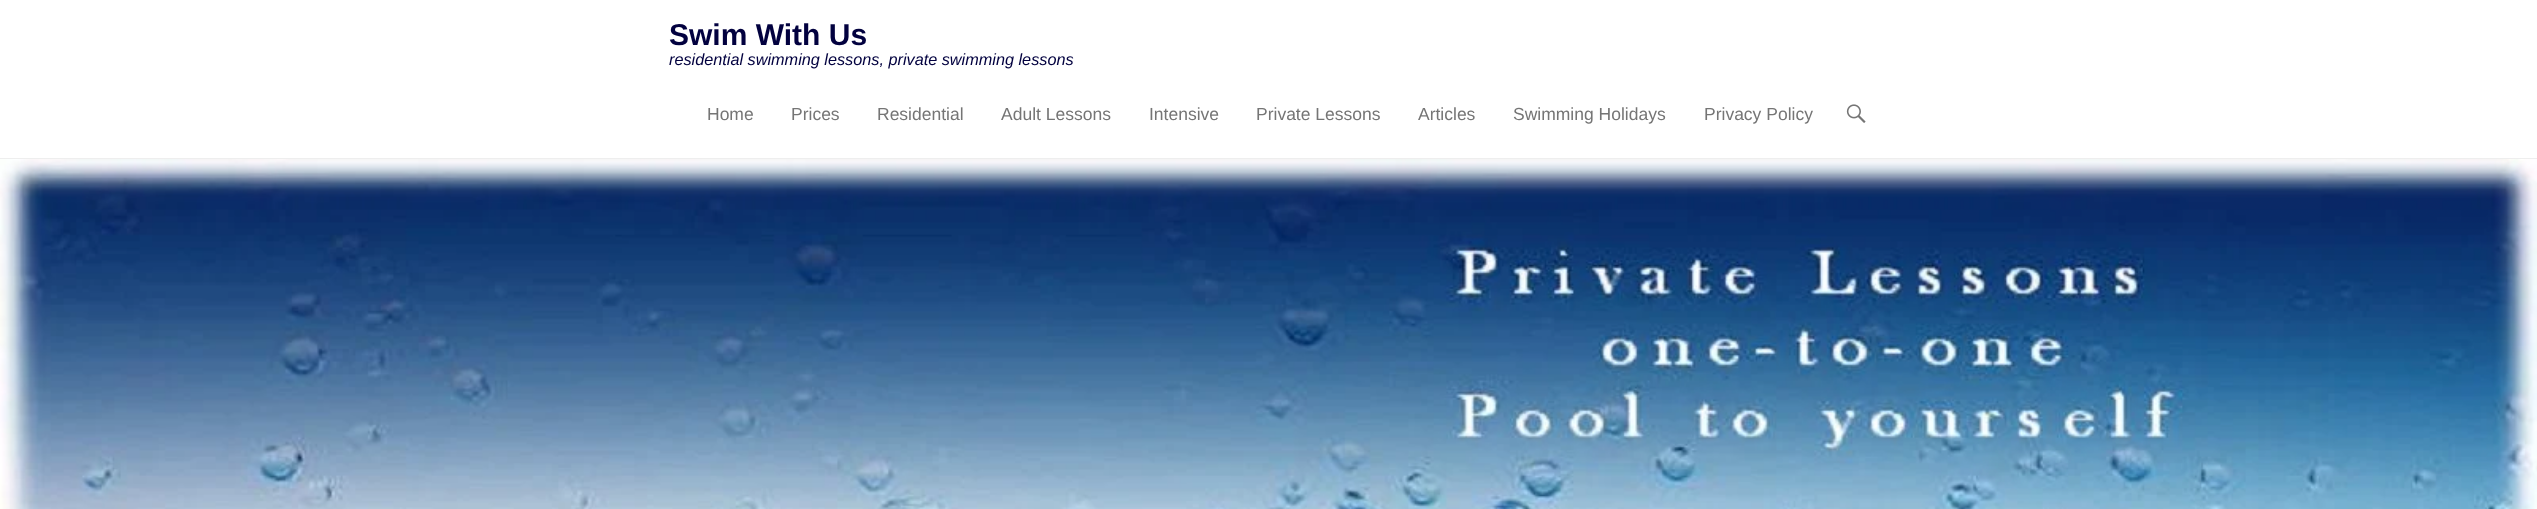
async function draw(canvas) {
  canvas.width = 2537
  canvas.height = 509
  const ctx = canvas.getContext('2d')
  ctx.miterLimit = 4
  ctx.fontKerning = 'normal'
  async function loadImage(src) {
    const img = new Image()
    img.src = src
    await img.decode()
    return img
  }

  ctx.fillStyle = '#fff'
  ctx.fillRect(0, 0, 2537, 509)
  ctx.fillStyle = '#eee'
  ctx.fillRect(0, 158, 2537, 1)
  ctx.font = 'bold 30px Liberation Sans'
  ctx.fillStyle = '#02013f'
  ctx.fillText('Swim With Us', 669, 45)
  ctx.font = 'italic 16.25px Liberation Sans'
  ctx.fillText('residential swimming lessons, private swimming lessons', 669, 65)
  ctx.font = '17.5px Liberation Sans'
  ctx.fillStyle = '#757575'
  ctx.fillText('Home', 707, 120)
  ctx.fillText('Prices', 791, 120)
  ctx.fillText('Residential', 877, 120)
  ctx.fillText('Adult Lessons', 1001, 120)
  ctx.fillText('Intensive', 1149, 120)
  ctx.fillText('Private Lessons', 1256, 120)
  ctx.fillText('Articles', 1418, 120)
  ctx.fillText('Swimming Holidays', 1513, 120)
  ctx.fillText('Privacy Policy', 1704, 120)
  ctx.drawImage(await loadImage('image0.png'), 1846, 104, 20, 19)
  ctx.drawImage(await loadImage('image1.png'), 0, 159, 2537, 350)
}

draw(document.querySelector('canvas'))
